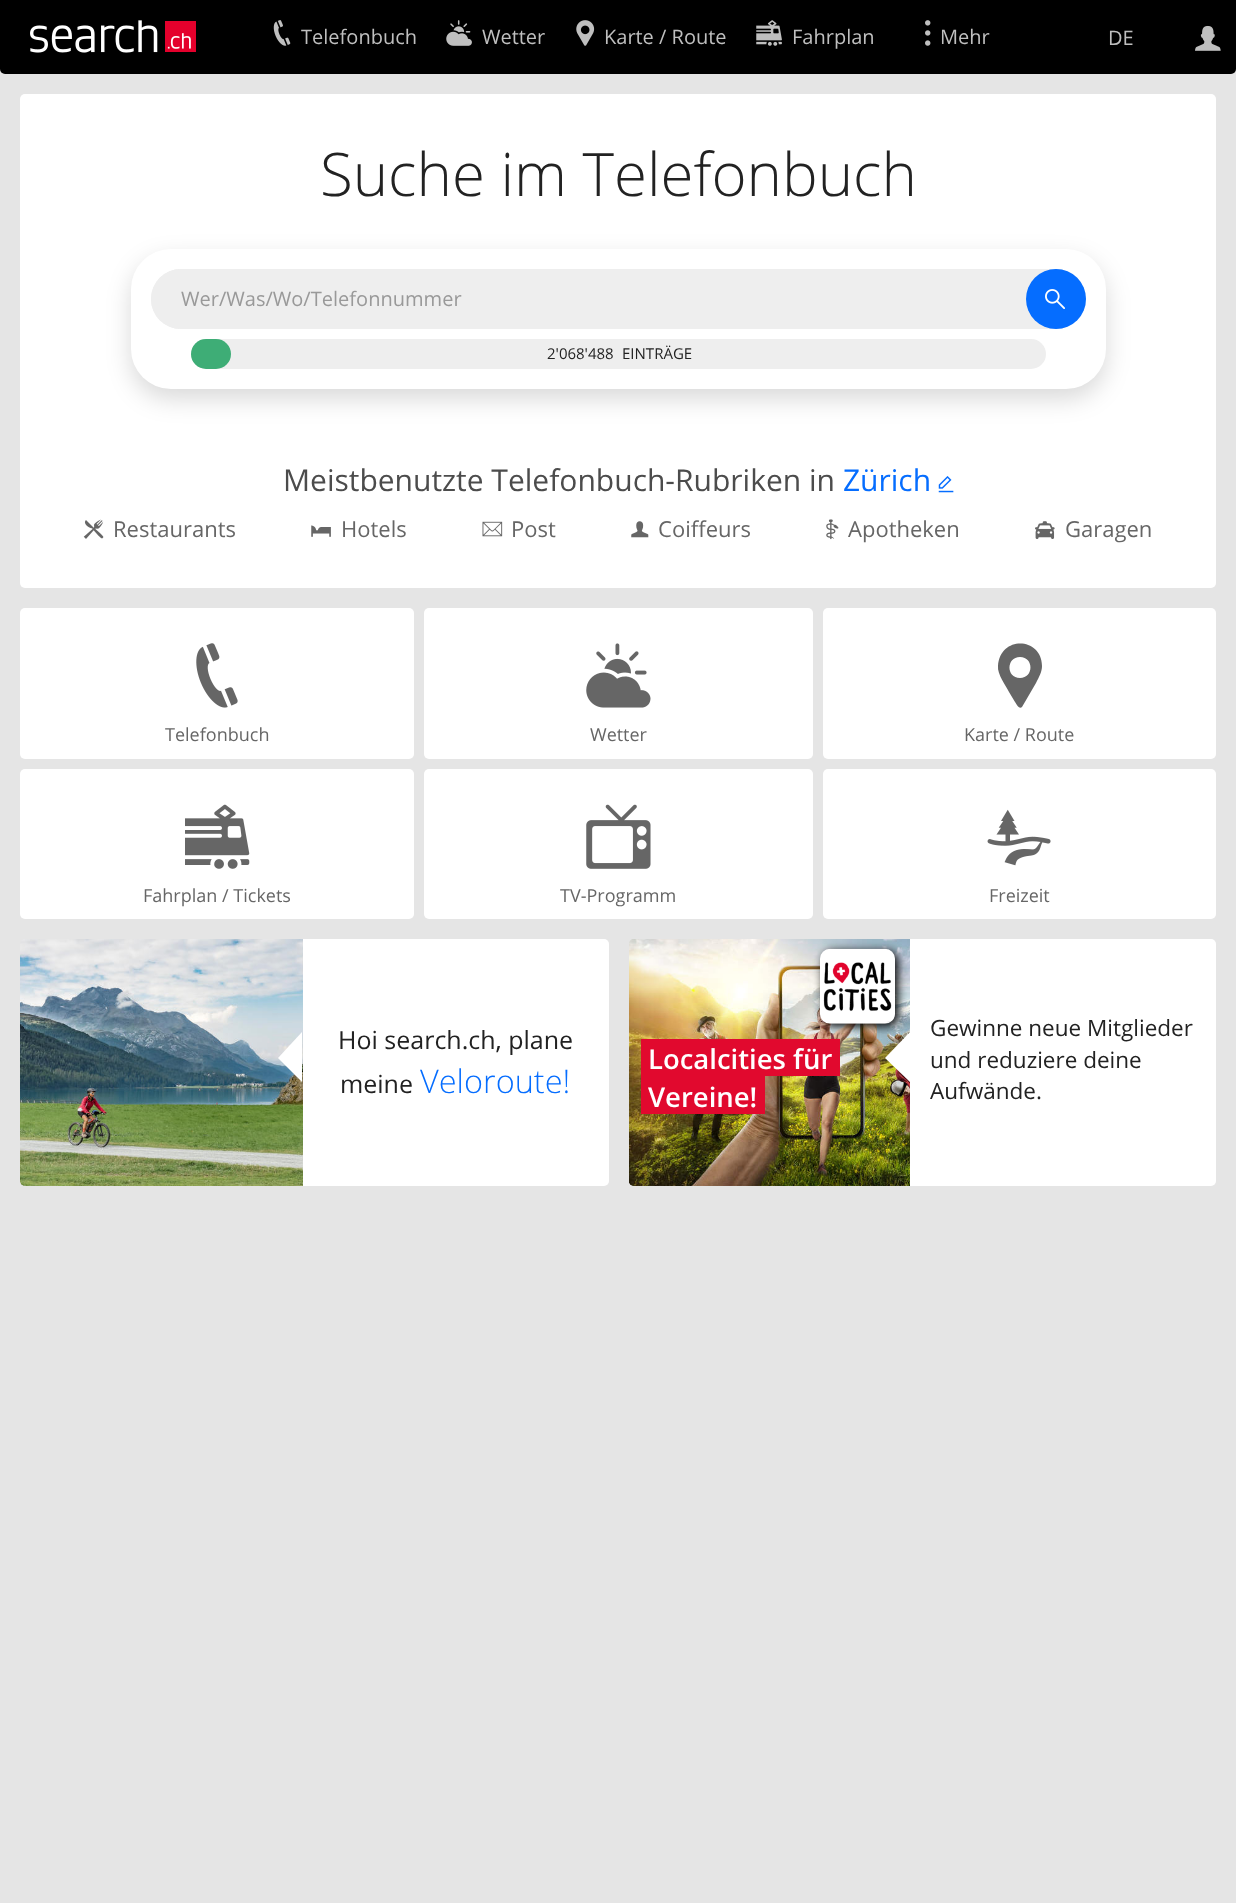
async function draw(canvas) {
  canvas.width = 1236
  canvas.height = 1903
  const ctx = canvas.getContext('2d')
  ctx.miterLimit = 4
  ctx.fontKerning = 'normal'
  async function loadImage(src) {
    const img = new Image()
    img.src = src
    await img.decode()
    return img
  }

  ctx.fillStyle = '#e5e5e5'
  ctx.fillRect(0, 0, 1236, 1903)
  ctx.fillStyle = '#000'
  ctx.beginPath()
  ctx.roundRect(0, 0, 1236, 74, [0, 0, 5, 5])
  ctx.fill()
  ctx.drawImage(await loadImage('image0.png'), 30, 20, 166, 33)
  ctx.drawImage(await loadImage('image1.png'), 273, 20, 18, 26)
  ctx.font = '20px Open Sans'
  ctx.fillStyle = '#bfbfbf'
  ctx.fillText('Telefonbuch', 301, 44)
  ctx.drawImage(await loadImage('image2.png'), 446, 20, 26, 26)
  ctx.fillText('Wetter', 482, 44)
  ctx.drawImage(await loadImage('image3.png'), 576, 20, 19, 26)
  ctx.fillText('Karte / Route', 604, 44)
  ctx.drawImage(await loadImage('image4.png'), 756, 20, 26, 26)
  ctx.fillText('Fahrplan', 792, 44)
  ctx.drawImage(await loadImage('image5.png'), 925, 20, 6, 26)
  ctx.fillText('Mehr', 940, 44)
  ctx.fillText('DE', 1108, 45)
  ctx.drawImage(await loadImage('image6.png'), 1195, 25, 26, 26)
  ctx.fillStyle = '#fff'
  ctx.beginPath()
  ctx.roundRect(20, 94, 1196, 340, [5, 5, 0, 0])
  ctx.fill()
  ctx.font = '300 60px Open Sans'
  ctx.fillStyle = '#222'
  ctx.fillText('Suche im Telefonbuch', 320, 196)
  ctx.fillStyle = '#fff'
  ctx.beginPath()
  ctx.roundRect(20, 434, 1196, 154, [0, 0, 5, 5])
  ctx.fill()
  ctx.fillStyle = '#00000026'
  ctx.filter = 'blur(12.5px)'
  ctx.beginPath()
  ctx.roundRect(131, 259, 975, 140, 40)
  ctx.fill()
  ctx.filter = 'none'
  ctx.fillStyle = '#fff'
  ctx.beginPath()
  ctx.roundRect(131, 249, 975, 140, 40)
  ctx.fill()
  ctx.fillStyle = '#eee'
  ctx.beginPath()
  ctx.roundRect(151, 269, 935, 60, 30)
  ctx.fill()
  ctx.beginPath()
  ctx.roundRect(151, 269, 875, 60, 30)
  ctx.fill()
  ctx.font = '20px Open Sans'
  ctx.fillStyle = '#999'
  ctx.fillText('Wer/Was/Wo/Telefonnummer', 181, 306)
  ctx.fillStyle = '#056dff'
  ctx.beginPath()
  ctx.arc(1056, 299, 30, 0, 2 * Math.PI)
  ctx.fill()
  ctx.drawImage(await loadImage('image7.png'), 1045, 289, 20, 20)
  ctx.fillStyle = '#eee'
  ctx.beginPath()
  ctx.roundRect(191, 339, 855, 30, 15)
  ctx.fill()
  ctx.fillStyle = '#3ead76'
  ctx.beginPath()
  ctx.roundRect(191, 339, 40, 30, 15)
  ctx.fill()
  ctx.font = '15px Open Sans'
  ctx.fillStyle = '#222'
  ctx.fillText('2\'068\'488', 547, 359)
  ctx.fillText('EINTRÄGE', 622, 359)
  ctx.font = '30px Open Sans'
  ctx.fillStyle = '#4c4c4c'
  ctx.fillText('Meistbenutzte Telefonbuch-Rubriken in', 283, 491)
  ctx.fillStyle = '#056dff'
  ctx.fillText('Zürich', 843, 491)
  ctx.drawImage(await loadImage('image8.png'), 938, 476, 16, 17)
  ctx.drawImage(await loadImage('image9.png'), 83, 519, 21, 20)
  ctx.font = '22px Open Sans'
  ctx.fillStyle = '#666'
  ctx.fillText('Restaurants', 113, 537)
  ctx.drawImage(await loadImage('image10.png'), 311, 525, 20, 12)
  ctx.fillText('Hotels', 341, 537)
  ctx.drawImage(await loadImage('image11.png'), 482, 521, 21, 16)
  ctx.fillText('Post', 511, 537)
  ctx.drawImage(await loadImage('image12.png'), 631, 521, 18, 17)
  ctx.fillText('Coiffeurs', 658, 537)
  ctx.drawImage(await loadImage('image13.png'), 826, 519, 13, 21)
  ctx.fillText('Apotheken', 848, 537)
  ctx.drawImage(await loadImage('image14.png'), 1035, 521, 20, 18)
  ctx.fillText('Garagen', 1065, 537)
  ctx.fillStyle = '#fff'
  ctx.beginPath()
  ctx.roundRect(20, 608, 394, 151, 5)
  ctx.fill()
  ctx.drawImage(await loadImage('image15.png'), 196, 643, 42, 65)
  ctx.font = '18px Open Sans'
  ctx.fillStyle = '#666'
  ctx.fillText('Telefonbuch', 165, 741)
  ctx.fillStyle = '#fff'
  ctx.beginPath()
  ctx.roundRect(424, 608, 389, 151, 5)
  ctx.fill()
  ctx.drawImage(await loadImage('image16.png'), 586, 643, 65, 65)
  ctx.fillStyle = '#666'
  ctx.fillText('Wetter', 590, 741)
  ctx.fillStyle = '#fff'
  ctx.beginPath()
  ctx.roundRect(823, 608, 393, 151, 5)
  ctx.fill()
  ctx.fillStyle = '#666'
  ctx.beginPath()
  ctx.moveTo(1042, 666)
  ctx.bezierCurveTo(1042, 637, 1000, 635, 998, 666)
  ctx.bezierCurveTo(997, 674, 1006, 686, 1009, 692)
  ctx.lineTo(1015, 702)
  ctx.bezierCurveTo(1016, 703, 1019, 710, 1022, 707)
  ctx.lineTo(1036, 683)
  ctx.bezierCurveTo(1039, 677, 1042, 672, 1042, 666)
  ctx.closePath()
  ctx.moveTo(1020, 678)
  ctx.bezierCurveTo(1006, 678, 1006, 657, 1020, 657)
  ctx.bezierCurveTo(1034, 657, 1034, 678, 1020, 678)
  ctx.closePath()
  ctx.fill()
  ctx.fillText('Karte / Route', 964, 741)
  ctx.fillStyle = '#fff'
  ctx.beginPath()
  ctx.roundRect(20, 769, 394, 150, 5)
  ctx.fill()
  ctx.drawImage(await loadImage('image17.png'), 185, 804, 65, 65)
  ctx.fillStyle = '#666'
  ctx.fillText('Fahrplan / Tickets', 143, 902)
  ctx.fillStyle = '#fff'
  ctx.beginPath()
  ctx.roundRect(424, 769, 389, 150, 5)
  ctx.fill()
  ctx.drawImage(await loadImage('image18.png'), 586, 804, 65, 65)
  ctx.fillStyle = '#666'
  ctx.fillText('TV-Programm', 560, 902)
  ctx.fillStyle = '#fff'
  ctx.beginPath()
  ctx.roundRect(823, 769, 393, 150, 5)
  ctx.fill()
  ctx.drawImage(await loadImage('image19.png'), 987, 809, 64, 57)
  ctx.fillStyle = '#666'
  ctx.fillText('Freizeit', 989, 902)
  ctx.drawImage(await loadImage('image20.png'), 20, 939, 283, 247)
  ctx.fillStyle = '#fff'
  ctx.beginPath()
  ctx.roundRect(303, 939, 306, 247, [0, 5, 5, 0])
  ctx.fill()
  ctx.beginPath()
  ctx.moveTo(302, 1032)
  ctx.lineTo(302, 1082)
  ctx.lineTo(278, 1058)
  ctx.closePath()
  ctx.fill()
  ctx.font = '25px Open Sans'
  ctx.fillStyle = '#222'
  ctx.fillText('Hoi search.ch, plane', 338, 1049)
  ctx.fillText('meine', 340, 1093)
  ctx.font = '300 32.5px Open Sans'
  ctx.fillStyle = '#056dff'
  ctx.fillText('Veloroute!', 420, 1093)
  ctx.drawImage(await loadImage('image21.png'), 629, 939, 281, 247)
  ctx.fillStyle = '#e1092e'
  ctx.fillRect(641, 1039, 199, 37)
  ctx.font = '600 27.5px Open Sans'
  ctx.fillStyle = '#fff'
  ctx.fillText('Localcities für', 648, 1069)
  ctx.fillStyle = '#e1092e'
  ctx.beginPath()
  ctx.moveTo(641, 1076)
  ctx.lineTo(641, 1114)
  ctx.lineTo(758, 1114)
  ctx.lineTo(649, 1114)
  ctx.lineTo(649, 1076)
  ctx.lineTo(758, 1076)
  ctx.closePath()
  ctx.fill()
  ctx.fillRect(649, 1076, 116, 38)
  ctx.fillStyle = '#fff'
  ctx.fillText('Vereine!', 648, 1107)
  ctx.beginPath()
  ctx.roundRect(910, 939, 306, 247, [0, 5, 5, 0])
  ctx.fill()
  ctx.fillStyle = '#000'
  ctx.filter = 'blur(5px)'
  ctx.beginPath()
  ctx.roundRect(823, 951, 75, 75, 10)
  ctx.fill()
  ctx.filter = 'none'
  ctx.fillStyle = '#fff'
  ctx.beginPath()
  ctx.moveTo(910, 1032)
  ctx.lineTo(910, 1082)
  ctx.lineTo(885, 1058)
  ctx.closePath()
  ctx.fill()
  ctx.drawImage(await loadImage('image22.png'), 820, 948, 75, 76)
  ctx.font = '22.5px Open Sans'
  ctx.fillStyle = '#222'
  ctx.fillText('Gewinne neue Mitglieder', 930, 1036)
  ctx.fillText('und reduziere deine', 930, 1068)
  ctx.fillText('Aufwände.', 930, 1099)
}

draw(document.querySelector('canvas'))
